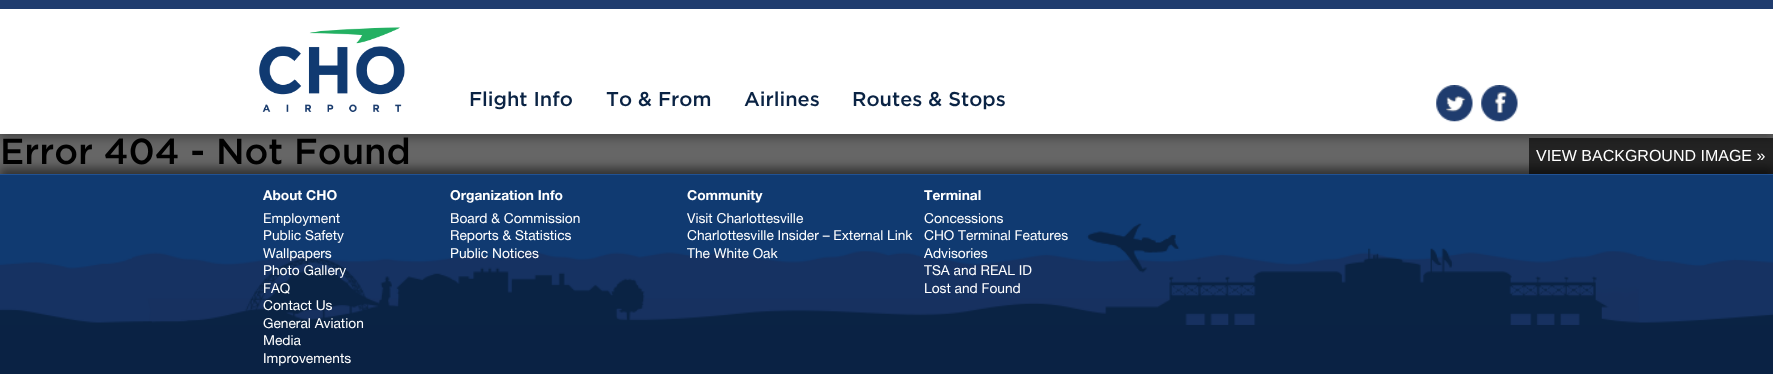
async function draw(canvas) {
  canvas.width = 1773
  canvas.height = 374
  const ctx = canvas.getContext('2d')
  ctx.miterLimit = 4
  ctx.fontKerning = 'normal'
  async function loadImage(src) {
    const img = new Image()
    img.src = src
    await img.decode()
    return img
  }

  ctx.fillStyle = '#666'
  ctx.fillRect(0, 0, 1773, 374)
  ctx.fillStyle = '#00000080'
  ctx.filter = 'blur(5px)'
  ctx.beginPath()
  ctx.rect(0, 168, 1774, 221)
  ctx.fill()
  ctx.filter = 'none'
  ctx.fillStyle = '#000000a8'
  ctx.fillRect(1529, 138, 244, 36)
  ctx.fillStyle = '#00000054'
  ctx.filter = 'blur(5px)'
  ctx.beginPath()
  ctx.rect(0, 4, 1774, 134)
  ctx.fill()
  ctx.filter = 'none'
  ctx.fillStyle = '#fff'
  ctx.fillRect(0, 9, 1773, 125)
  ctx.fillStyle = '#1f3c6e'
  ctx.fillRect(0, 0, 1773, 9)
  ctx.drawImage(await loadImage('image0.png'), 259, 27, 146, 85)
  ctx.font = '500 20px gotham'
  ctx.fillStyle = '#0a2344'
  ctx.fillText('Flight Info', 469, 106)
  ctx.fillText('To & From', 606, 106)
  ctx.fillText('Airlines', 744, 106)
  ctx.fillText('Routes & Stops', 852, 106)
  ctx.drawImage(await loadImage('image1.png'), 1436, 85, 37, 37)
  ctx.drawImage(await loadImage('image2.png'), 1481, 85, 37, 37)
  ctx.font = '500 36.25px gotham'
  ctx.fillStyle = '#000'
  ctx.fillText('Error 404 - Not Found', 0, 164)
  ctx.fillStyle = '#0a2244'
  ctx.fillRect(0, 325, 1773, 49)
  ctx.drawImage(await loadImage('image3.png'), 0, 175, 1773, 150)
  ctx.fillStyle = '#215294'
  ctx.fillRect(0, 174, 1773, 1)
  ctx.font = '16px Liberation Sans'
  ctx.fillStyle = '#fff'
  ctx.fillText('VIEW BACKGROUND IMAGE »', 1536, 161)
  ctx.font = 'bold 13.75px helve'
  ctx.fillText('About CHO', 263, 200)
  ctx.font = '13.75px Helvetica'
  ctx.fillText('Employment', 263, 223)
  ctx.fillText('Public Safety', 263, 240)
  ctx.fillText('Wallpapers', 263, 258)
  ctx.fillText('Photo Gallery', 263, 275)
  ctx.fillText('FAQ', 263, 293)
  ctx.fillText('Contact Us', 263, 310)
  ctx.fillText('General Aviation', 263, 328)
  ctx.fillText('Media', 263, 345)
  ctx.fillText('Improvements', 263, 363)
  ctx.font = 'bold 13.75px helve'
  ctx.fillText('Organization Info', 450, 200)
  ctx.font = '13.75px Helvetica'
  ctx.fillText('Board & Commission', 450, 223)
  ctx.fillText('Reports & Statistics', 450, 240)
  ctx.fillText('Public Notices', 450, 258)
  ctx.font = 'bold 13.75px helve'
  ctx.fillText('Community', 687, 200)
  ctx.font = '13.75px Helvetica'
  ctx.fillText('Visit Charlottesville', 687, 223)
  ctx.fillText('Charlottesville Insider – External Link', 687, 240)
  ctx.fillText('The White Oak', 687, 258)
  ctx.font = 'bold 13.75px helve'
  ctx.fillText('Terminal', 924, 200)
  ctx.font = '13.75px Helvetica'
  ctx.fillText('Concessions', 924, 223)
  ctx.fillText('CHO Terminal Features', 924, 240)
  ctx.fillText('Advisories', 924, 258)
  ctx.fillText('TSA and REAL ID', 924, 275)
  ctx.fillText('Lost and Found', 924, 293)
}

draw(document.querySelector('canvas'))
